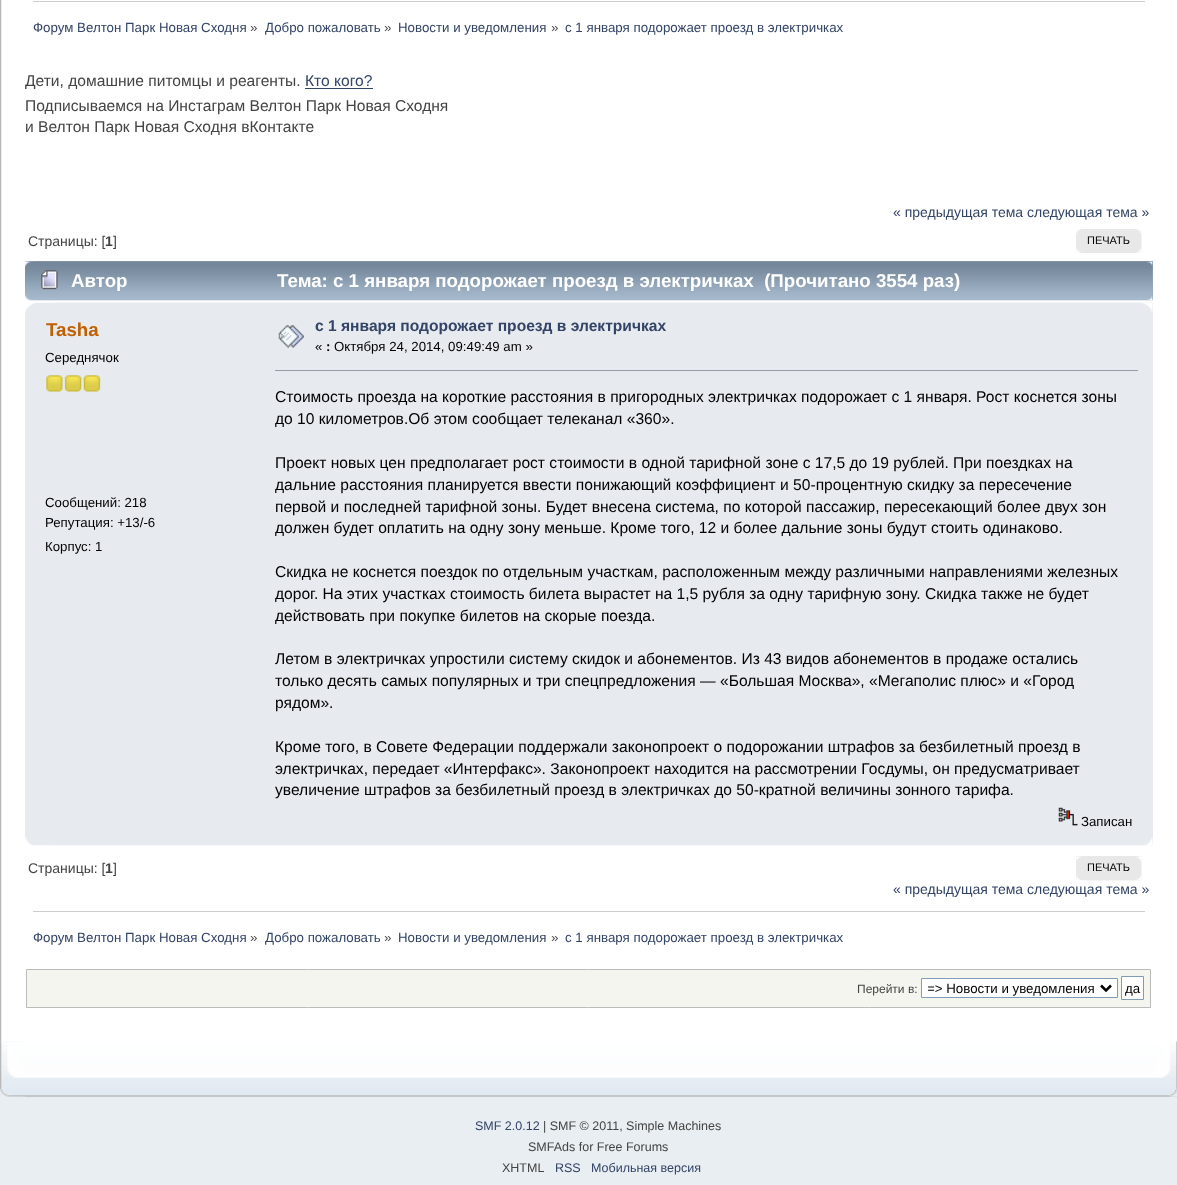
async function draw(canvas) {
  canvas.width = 1177
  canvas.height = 1185
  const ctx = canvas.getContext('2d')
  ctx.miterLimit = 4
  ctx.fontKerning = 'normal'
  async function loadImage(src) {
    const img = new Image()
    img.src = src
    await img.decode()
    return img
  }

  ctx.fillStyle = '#e9eef2'
  ctx.fillRect(0, 0, 1177, 1185)
  ctx.drawImage(await loadImage('image0.png'), 0, 0, 25, 1042)
  ctx.fillStyle = '#fff'
  ctx.fillRect(25, 0, 1152, 1042)
  ctx.fillStyle = '#ccc'
  ctx.fillRect(33, 1, 1112, 1)
  ctx.font = '13.3px Liberation Sans'
  ctx.fillStyle = '#346'
  ctx.fillText('Форум Велтон Парк Новая Сходня', 33, 32)
  ctx.fillStyle = '#444'
  ctx.fillText('»', 250, 32)
  ctx.fillStyle = '#346'
  ctx.fillText('Добро пожаловать', 265, 32)
  ctx.fillStyle = '#444'
  ctx.fillText('»', 384, 32)
  ctx.fillStyle = '#346'
  ctx.fillText('Новости и уведомления', 398, 32)
  ctx.fillStyle = '#444'
  ctx.fillText('»', 551, 32)
  ctx.fillStyle = '#346'
  ctx.fillText('с 1 января подорожает проезд в электричках', 565, 32)
  ctx.font = '15.6px Liberation Sans'
  ctx.fillStyle = '#444'
  ctx.fillText('Дети, домашние питомцы и реагенты.', 25, 86)
  ctx.fillStyle = '#346'
  ctx.fillText('Кто кого?', 305, 86)
  ctx.fillRect(305, 88, 68, 1)
  ctx.fillStyle = '#444'
  ctx.fillText('Подписываемся на Инстаграм Велтон Парк Новая Сходня', 25, 111)
  ctx.fillText('и Велтон Парк Новая Сходня вКонтакте', 25, 132)
  ctx.font = '14px Liberation Sans'
  ctx.fillStyle = '#346'
  ctx.fillText('« предыдущая тема следующая тема »', 893, 217)
  ctx.fillStyle = '#444'
  ctx.fillText('Страницы: [', 28, 246)
  ctx.font = 'bold 14px Liberation Sans'
  ctx.fillText('1', 105, 246)
  ctx.font = '14px Liberation Sans'
  ctx.fillText(']', 113, 246)
  ctx.fillStyle = '#e8e8e8'
  ctx.fillRect(1076, 229, 65, 24)
  ctx.drawImage(await loadImage('image1.png'), 1076, 229, 66, 24)
  ctx.drawImage(await loadImage('image2.png'), 1136, 229, 6, 24)
  ctx.font = '11px Liberation Sans'
  ctx.fillStyle = '#000'
  ctx.fillText('ПЕЧАТЬ', 1087, 244)
  ctx.fillStyle = '#99abbf'
  ctx.fillRect(25, 261, 1128, 39)
  ctx.drawImage(await loadImage('image3.png'), 25, 261, 1128, 40)
  ctx.drawImage(await loadImage('image4.png'), 36, 261, 1117, 40)
  ctx.drawImage(await loadImage('image5.png'), 41, 270, 17, 20)
  ctx.font = 'bold 18.7px Liberation Sans'
  ctx.fillStyle = '#fff'
  ctx.fillText('Автор', 71, 287)
  ctx.fillText('Тема: с 1 января подорожает проезд в электричках  (Прочитано 3554 раз)', 277, 287)
  ctx.fillStyle = '#e7eaef'
  ctx.fillRect(25, 303, 1128, 542)
  ctx.drawImage(await loadImage('image6.png'), 25, 302, 1127, 11)
  ctx.drawImage(await loadImage('image7.png'), 50, 302, 1103, 10)
  ctx.fillStyle = '#c06002'
  ctx.fillText('Tasha', 46, 336)
  ctx.font = '13.25px Liberation Sans'
  ctx.fillStyle = '#000'
  ctx.fillText('Середнячок', 45, 362)
  ctx.drawImage(await loadImage('image8.png'), 46, 375, 17, 17)
  ctx.drawImage(await loadImage('image9.png'), 64, 375, 18, 17)
  ctx.drawImage(await loadImage('image10.png'), 83, 375, 18, 17)
  ctx.fillText('Сообщений: 218', 45, 507)
  ctx.fillText('Репутация: +13/-6', 45, 527)
  ctx.fillText('Корпус: 1', 45, 551)
  ctx.drawImage(await loadImage('image11.png'), 278, 325, 26, 23)
  ctx.font = 'bold 15.6px Liberation Sans'
  ctx.fillStyle = '#346'
  ctx.fillText('с 1 января подорожает проезд в электричках', 315, 331)
  ctx.font = '13.25px Liberation Sans'
  ctx.fillStyle = '#000'
  ctx.fillText('«', 315, 351)
  ctx.font = 'bold 13.25px Liberation Sans'
  ctx.fillText(':', 326, 351)
  ctx.font = '13.25px Liberation Sans'
  ctx.fillText('Октября 24, 2014, 09:49:49 am »', 334, 351)
  ctx.fillStyle = '#99a'
  ctx.fillRect(275, 370, 863, 1)
  ctx.font = '15.6px Liberation Sans'
  ctx.fillStyle = '#000'
  ctx.fillText('Стоимость проезда на короткие расстояния в пригородных электричках подорожает с 1 января. Рост коснется зоны', 275, 402)
  ctx.save()
  ctx.beginPath()
  ctx.rect(275, 369, 878, 437)
  ctx.clip()
  ctx.fillText('до 10 километров.Об этом сообщает телеканал «360».', 275, 424)
  ctx.restore()
  ctx.fillText('Проект новых цен предполагает рост стоимости в одной тарифной зоне с 17,5 до 19 рублей. При поездках на', 275, 468)
  ctx.save()
  ctx.beginPath()
  ctx.rect(275, 369, 878, 437)
  ctx.clip()
  ctx.fillText('дальние расстояния планируется ввести понижающий коэффициент и 50-процентную скидку за пересечение', 275, 490)
  ctx.restore()
  ctx.fillText('первой и последней тарифной зоны. Будет внесена система, по которой пассажир, пересекающий более двух зон', 275, 512)
  ctx.save()
  ctx.beginPath()
  ctx.rect(275, 369, 878, 437)
  ctx.clip()
  ctx.fillText('должен будет оплатить на одну зону меньше. Кроме того, 12 и более дальние зоны будут стоить одинаково.', 275, 533)
  ctx.restore()
  ctx.fillText('Скидка не коснется поездок по отдельным участкам, расположенным между различными направлениями железных', 275, 577)
  ctx.save()
  ctx.beginPath()
  ctx.rect(275, 369, 878, 437)
  ctx.clip()
  ctx.fillText('дорог. На этих участках стоимость билета вырастет на 1,5 рубля за одну тарифную зону. Скидка также не будет', 275, 599)
  ctx.fillText('действовать при покупке билетов на скорые поезда.', 275, 621)
  ctx.restore()
  ctx.fillText('Летом в электричках упростили систему скидок и абонементов. Из 43 видов абонементов в продаже остались', 275, 664)
  ctx.fillText('только десять самых популярных и три спецпредложения — «Большая Москва», «Мегаполис плюс» и «Город', 275, 686)
  ctx.fillText('рядом».', 275, 708)
  ctx.fillText('Кроме того, в Совете Федерации поддержали законопроект о подорожании штрафов за безбилетный проезд в', 275, 752)
  ctx.fillText('электричках, передает «Интерфакс». Законопроект находится на рассмотрении Госдумы, он предусматривает', 275, 774)
  ctx.fillText('увеличение штрафов за безбилетный проезд в электричках до 50-кратной величины зонного тарифа.', 275, 795)
  ctx.drawImage(await loadImage('image12.png'), 1058, 807, 20, 19)
  ctx.font = '13.25px Liberation Sans'
  ctx.fillText('Записан', 1081, 826)
  ctx.drawImage(await loadImage('image13.png'), 25, 836, 1127, 10)
  ctx.drawImage(await loadImage('image14.png'), 50, 837, 1103, 9)
  ctx.font = '14px Liberation Sans'
  ctx.fillStyle = '#444'
  ctx.fillText('Страницы: [', 28, 873)
  ctx.font = 'bold 14px Liberation Sans'
  ctx.fillText('1', 105, 873)
  ctx.font = '14px Liberation Sans'
  ctx.fillText(']', 113, 873)
  ctx.fillStyle = '#e8e8e8'
  ctx.fillRect(1076, 856, 65, 24)
  ctx.drawImage(await loadImage('image15.png'), 1076, 856, 66, 25)
  ctx.drawImage(await loadImage('image16.png'), 1087, 856, 55, 25)
  ctx.font = '11px Liberation Sans'
  ctx.fillStyle = '#000'
  ctx.fillText('ПЕЧАТЬ', 1087, 871)
  ctx.font = '14px Liberation Sans'
  ctx.fillStyle = '#346'
  ctx.fillText('« предыдущая тема следующая тема »', 893, 894)
  ctx.fillStyle = '#ccc'
  ctx.fillRect(33, 911, 1112, 1)
  ctx.font = '13.3px Liberation Sans'
  ctx.fillStyle = '#346'
  ctx.fillText('Форум Велтон Парк Новая Сходня', 33, 942)
  ctx.fillStyle = '#444'
  ctx.fillText('»', 250, 942)
  ctx.fillStyle = '#346'
  ctx.fillText('Добро пожаловать', 265, 942)
  ctx.fillStyle = '#444'
  ctx.fillText('»', 384, 942)
  ctx.fillStyle = '#346'
  ctx.fillText('Новости и уведомления', 398, 942)
  ctx.fillStyle = '#444'
  ctx.fillText('»', 551, 942)
  ctx.fillStyle = '#346'
  ctx.fillText('с 1 января подорожает проезд в электричках', 565, 942)
  ctx.fillStyle = '#f5f5f0'
  ctx.beginPath()
  ctx.rect(26.5, 969.5, 1124, 38)
  ctx.fill()
  ctx.strokeStyle = '#bbb'
  ctx.stroke()
  ctx.font = '12px Liberation Sans'
  ctx.fillStyle = '#444'
  ctx.fillText('Перейти в:', 857, 993)
  ctx.fillStyle = '#fff'
  ctx.beginPath()
  ctx.rect(921.5, 978.5, 196, 19)
  ctx.fill()
  ctx.strokeStyle = '#7f9db9'
  ctx.stroke()
  ctx.beginPath()
  ctx.moveTo(1101, 985.5)
  ctx.lineTo(1106, 990.5)
  ctx.lineTo(1111, 985.5)
  ctx.strokeStyle = '#000'
  ctx.lineWidth = 2.5
  ctx.stroke()
  ctx.save()
  ctx.beginPath()
  ctx.rect(928, 979, 168, 17)
  ctx.clip()
  ctx.font = '13.3px Liberation Sans'
  ctx.fillStyle = '#000'
  ctx.fillText('=> Новости и уведомления', 927, 993)
  ctx.restore()
  ctx.beginPath()
  ctx.rect(1121.5, 976.5, 22, 23)
  ctx.fill()
  ctx.strokeStyle = '#7f9db9'
  ctx.lineWidth = 1
  ctx.stroke()
  ctx.font = '13.3px Liberation Sans'
  ctx.fillStyle = '#000'
  ctx.fillText('да', 1125, 993)
  ctx.drawImage(await loadImage('image17.png'), 0, 1041, 1177, 56)
  ctx.drawImage(await loadImage('image18.png'), 25, 1041, 1152, 56)
  ctx.font = '12.5px Liberation Sans'
  ctx.fillStyle = '#346'
  ctx.fillText('SMF 2.0.12', 475, 1130)
  ctx.fillStyle = '#444'
  ctx.fillText('| SMF © 2011, Simple Machines', 543, 1130)
  ctx.fillText('SMFAds for Free Forums', 528, 1151)
  ctx.fillText('XHTML', 502, 1172)
  ctx.fillStyle = '#346'
  ctx.fillText('RSS', 555, 1172)
  ctx.fillText('Мобильная версия', 591, 1172)
}

draw(document.querySelector('canvas'))
